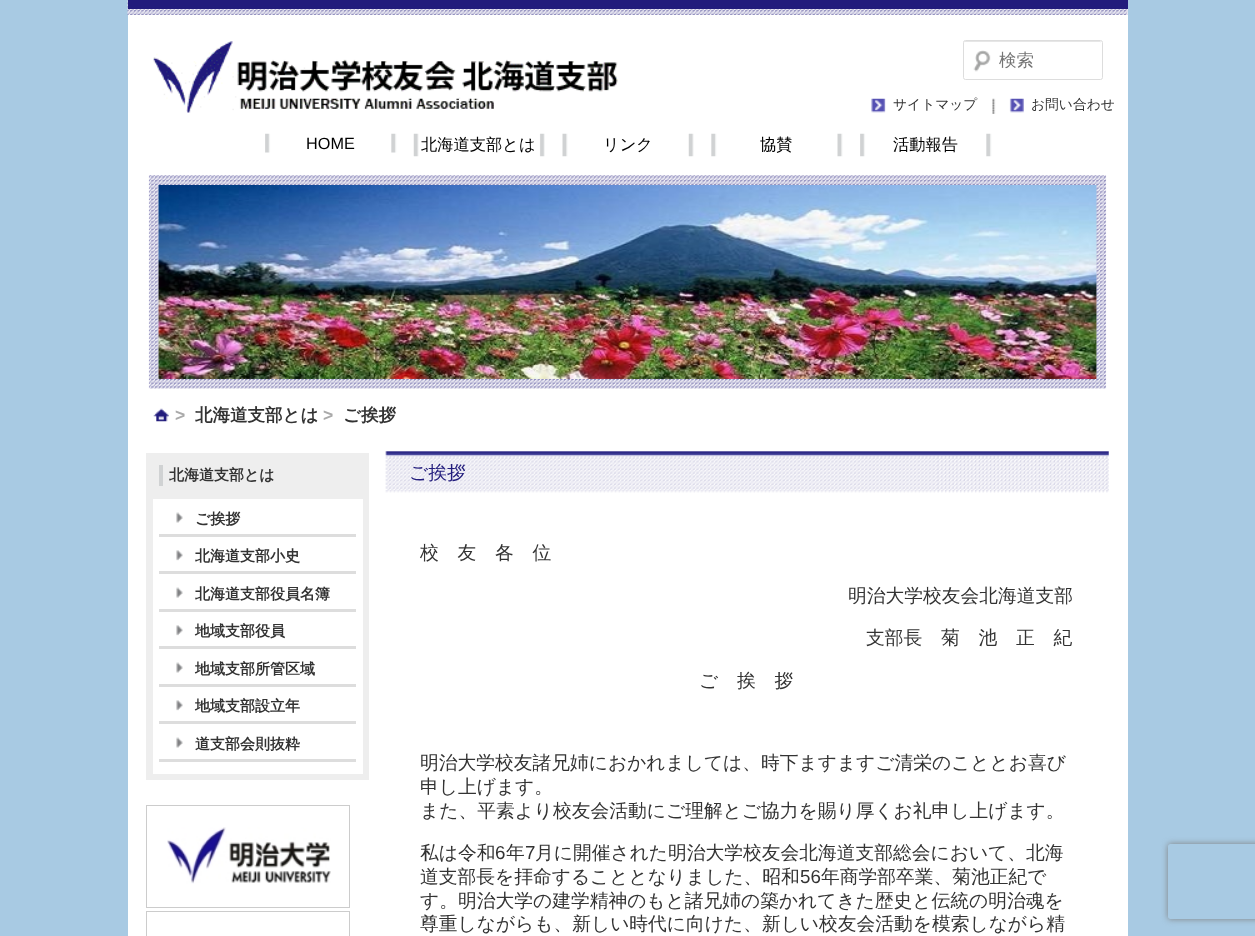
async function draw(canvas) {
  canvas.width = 1255
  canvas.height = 936
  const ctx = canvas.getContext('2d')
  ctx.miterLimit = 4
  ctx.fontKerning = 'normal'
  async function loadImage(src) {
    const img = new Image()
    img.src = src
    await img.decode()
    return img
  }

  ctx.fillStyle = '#a8cae3'
  ctx.fillRect(0, 0, 1255, 936)
  ctx.fillStyle = '#fff'
  ctx.fillRect(1127, 9, 1, 6)
  ctx.drawImage(await loadImage('image0.png'), 127, 0, 1001, 15)
  ctx.fillStyle = '#221c7c'
  ctx.fillRect(128, 0, 1000, 9)
  ctx.fillStyle = '#fff'
  ctx.fillRect(128, 15, 1000, 921)
  ctx.drawImage(await loadImage('image1.png'), 153, 41, 465, 72)
  ctx.drawImage(await loadImage('image2.png'), 973, 50, 18, 22)
  ctx.fillStyle = '#e6e6e6'
  ctx.beginPath()
  ctx.moveTo(965, 42)
  ctx.lineTo(1100, 42)
  ctx.bezierCurveTo(1101, 42, 1101, 43, 1101, 44)
  ctx.bezierCurveTo(1101, 43, 1101, 41, 1100, 41)
  ctx.lineTo(965, 41)
  ctx.bezierCurveTo(964, 42, 964, 43, 964, 44)
  ctx.bezierCurveTo(964, 43, 964, 42, 965, 42)
  ctx.closePath()
  ctx.fill()
  ctx.beginPath()
  ctx.roundRect(963.5, 40.5, 139, 39, 2)
  ctx.strokeStyle = '#ddd'
  ctx.stroke()
  ctx.font = '500 17.5px WenQuanYi Zen Hei'
  ctx.fillStyle = '#757575'
  ctx.fillText('検索', 999, 66)
  ctx.drawImage(await loadImage('image3.png'), 871, 98, 15, 15)
  ctx.font = '500 13.75px WenQuanYi Zen Hei'
  ctx.fillStyle = '#333'
  ctx.fillText('サイトマップ', 893, 109)
  ctx.drawImage(await loadImage('image4.png'), 992, 98, 4, 16)
  ctx.drawImage(await loadImage('image5.png'), 1009, 98, 15, 15)
  ctx.fillText('お問い合わせ', 1031, 109)
  ctx.drawImage(await loadImage('image6.png'), 265, 133, 132, 20)
  ctx.font = '16.25px Liberation Sans'
  ctx.fillStyle = '#000'
  ctx.fillText('HOME', 306, 149)
  ctx.drawImage(await loadImage('image7.png'), 413, 133, 132, 24)
  ctx.font = '500 16.25px WenQuanYi Zen Hei'
  ctx.fillText('北海道支部とは', 421, 150)
  ctx.drawImage(await loadImage('image8.png'), 562, 133, 132, 24)
  ctx.fillText('リンク', 603, 150)
  ctx.drawImage(await loadImage('image9.png'), 711, 133, 132, 24)
  ctx.fillText('協賛', 760, 150)
  ctx.drawImage(await loadImage('image10.png'), 860, 133, 132, 24)
  ctx.fillText('活動報告', 893, 150)
  ctx.drawImage(await loadImage('image11.png'), 148, 175, 959, 214)
  ctx.drawImage(await loadImage('image12.png'), 158, 185, 939, 194)
  ctx.drawImage(await loadImage('image13.png'), 153, 408, 16, 14)
  ctx.font = 'bold 17.5px Liberation Sans'
  ctx.fillStyle = '#aaa'
  ctx.fillText('>', 175, 421)
  ctx.font = 'bold 17.5px WenQuanYi Zen Hei'
  ctx.fillStyle = '#333'
  ctx.fillText('北海道支部とは', 195, 421)
  ctx.font = 'bold 17.5px Liberation Sans'
  ctx.fillStyle = '#aaa'
  ctx.fillText('>', 323, 421)
  ctx.font = 'bold 17.5px WenQuanYi Zen Hei'
  ctx.fillStyle = '#333'
  ctx.fillText('ご挨拶', 343, 421)
  ctx.fillStyle = '#eee'
  ctx.fillRect(146, 453, 223, 327)
  ctx.fillStyle = '#d0d2d3'
  ctx.fillRect(159, 465, 4, 21)
  ctx.font = 'bold 15px WenQuanYi Zen Hei'
  ctx.fillStyle = '#333'
  ctx.fillText('北海道支部とは', 169, 480)
  ctx.fillStyle = '#fff'
  ctx.fillRect(153, 499, 210, 275)
  ctx.fillStyle = '#ddd'
  ctx.fillRect(159, 534, 197, 3)
  ctx.drawImage(await loadImage('image14.png'), 176, 512, 7, 11)
  ctx.fillStyle = '#333'
  ctx.fillText('ご挨拶', 195, 524)
  ctx.fillStyle = '#ddd'
  ctx.fillRect(159, 571, 197, 3)
  ctx.drawImage(await loadImage('image15.png'), 176, 550, 7, 11)
  ctx.fillStyle = '#333'
  ctx.fillText('北海道支部小史', 195, 561)
  ctx.fillStyle = '#ddd'
  ctx.fillRect(159, 609, 197, 3)
  ctx.drawImage(await loadImage('image16.png'), 176, 587, 7, 11)
  ctx.fillStyle = '#333'
  ctx.fillText('北海道支部役員名簿', 195, 599)
  ctx.fillStyle = '#ddd'
  ctx.fillRect(159, 646, 197, 3)
  ctx.drawImage(await loadImage('image15.png'), 176, 625, 7, 11)
  ctx.fillStyle = '#333'
  ctx.fillText('地域支部役員', 195, 636)
  ctx.fillStyle = '#ddd'
  ctx.fillRect(159, 684, 197, 3)
  ctx.drawImage(await loadImage('image14.png'), 176, 662, 7, 11)
  ctx.fillStyle = '#333'
  ctx.fillText('地域支部所管区域', 195, 674)
  ctx.fillStyle = '#ddd'
  ctx.fillRect(159, 721, 197, 3)
  ctx.drawImage(await loadImage('image15.png'), 176, 700, 7, 11)
  ctx.fillStyle = '#333'
  ctx.fillText('地域支部設立年', 195, 711)
  ctx.fillStyle = '#ddd'
  ctx.fillRect(159, 759, 197, 3)
  ctx.drawImage(await loadImage('image14.png'), 176, 737, 7, 11)
  ctx.fillStyle = '#333'
  ctx.fillText('道支部会則抜粋', 195, 749)
  ctx.drawImage(await loadImage('image17.png'), 385, 451, 724, 42)
  ctx.font = '500 18.75px WenQuanYi Zen Hei'
  ctx.fillStyle = '#221c7c'
  ctx.fillText('ご挨拶', 409, 479)
  ctx.fillStyle = '#333'
  ctx.fillText('校　友　各　位', 420, 559)
  ctx.fillText('明治大学校友会北海道支部', 848, 602)
  ctx.fillText('支部長　菊　池　正　紀', 866, 644)
  ctx.fillText('ご　挨　拶', 699, 687)
  ctx.fillText('明治大学校友諸兄姉におかれましては、時下ますますご清栄のこととお喜び', 420, 769)
  ctx.fillText('申し上げます。', 420, 793)
  ctx.fillText('また、平素より校友会活動にご理解とご協力を賜り厚くお礼申し上げます。', 420, 817)
  ctx.fillText('私は令和', 420, 859)
  ctx.font = '18.75px Liberation Sans'
  ctx.fillText('6', 495, 859)
  ctx.font = '500 18.75px WenQuanYi Zen Hei'
  ctx.fillText('年', 506, 859)
  ctx.font = '18.75px Liberation Sans'
  ctx.fillText('7', 525, 859)
  ctx.font = '500 18.75px WenQuanYi Zen Hei'
  ctx.fillText('月に開催された明治大学校友会北海道支部総会において、北海', 535, 859)
  ctx.fillText('道支部長を拝命することとなりました、昭和', 420, 883)
  ctx.font = '18.75px Liberation Sans'
  ctx.fillText('56', 800, 883)
  ctx.font = '500 18.75px WenQuanYi Zen Hei'
  ctx.fillText('年商学部卒業、菊池正紀で', 821, 883)
  ctx.fillText('す。明治大学の建学精神のもと諸兄姉の築かれてきた歴史と伝統の明治魂を', 420, 907)
  ctx.fillText('尊重しながらも、新しい時代に向けた、新しい校友会活動を模索しながら精', 420, 930)
  ctx.strokeStyle = '#ccc'
  ctx.strokeRect(146.5, 805.5, 203, 102)
  ctx.drawImage(await loadImage('image18.png'), 167, 827, 164, 57)
  ctx.strokeRect(146.5, 911.5, 203, 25)
  ctx.save()
  ctx.beginPath()
  ctx.moveTo(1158, 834)
  ctx.lineTo(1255, 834)
  ctx.lineTo(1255, 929)
  ctx.lineTo(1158, 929)
  ctx.closePath()
  ctx.moveTo(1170.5, 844)
  ctx.lineTo(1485.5, 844)
  ctx.bezierCurveTo(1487, 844, 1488, 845, 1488, 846.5)
  ctx.lineTo(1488, 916.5)
  ctx.bezierCurveTo(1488, 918, 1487, 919, 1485.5, 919)
  ctx.lineTo(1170.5, 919)
  ctx.bezierCurveTo(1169, 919, 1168, 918, 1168, 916.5)
  ctx.lineTo(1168, 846.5)
  ctx.bezierCurveTo(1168, 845, 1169, 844, 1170.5, 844)
  ctx.closePath()
  ctx.clip('evenodd')
  ctx.fillStyle = '#808080'
  ctx.filter = 'blur(3px)'
  ctx.beginPath()
  ctx.roundRect(1168, 844, 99, 75, 2.5)
  ctx.fill()
  ctx.filter = 'none'
  ctx.restore()
}

draw(document.querySelector('canvas'))
